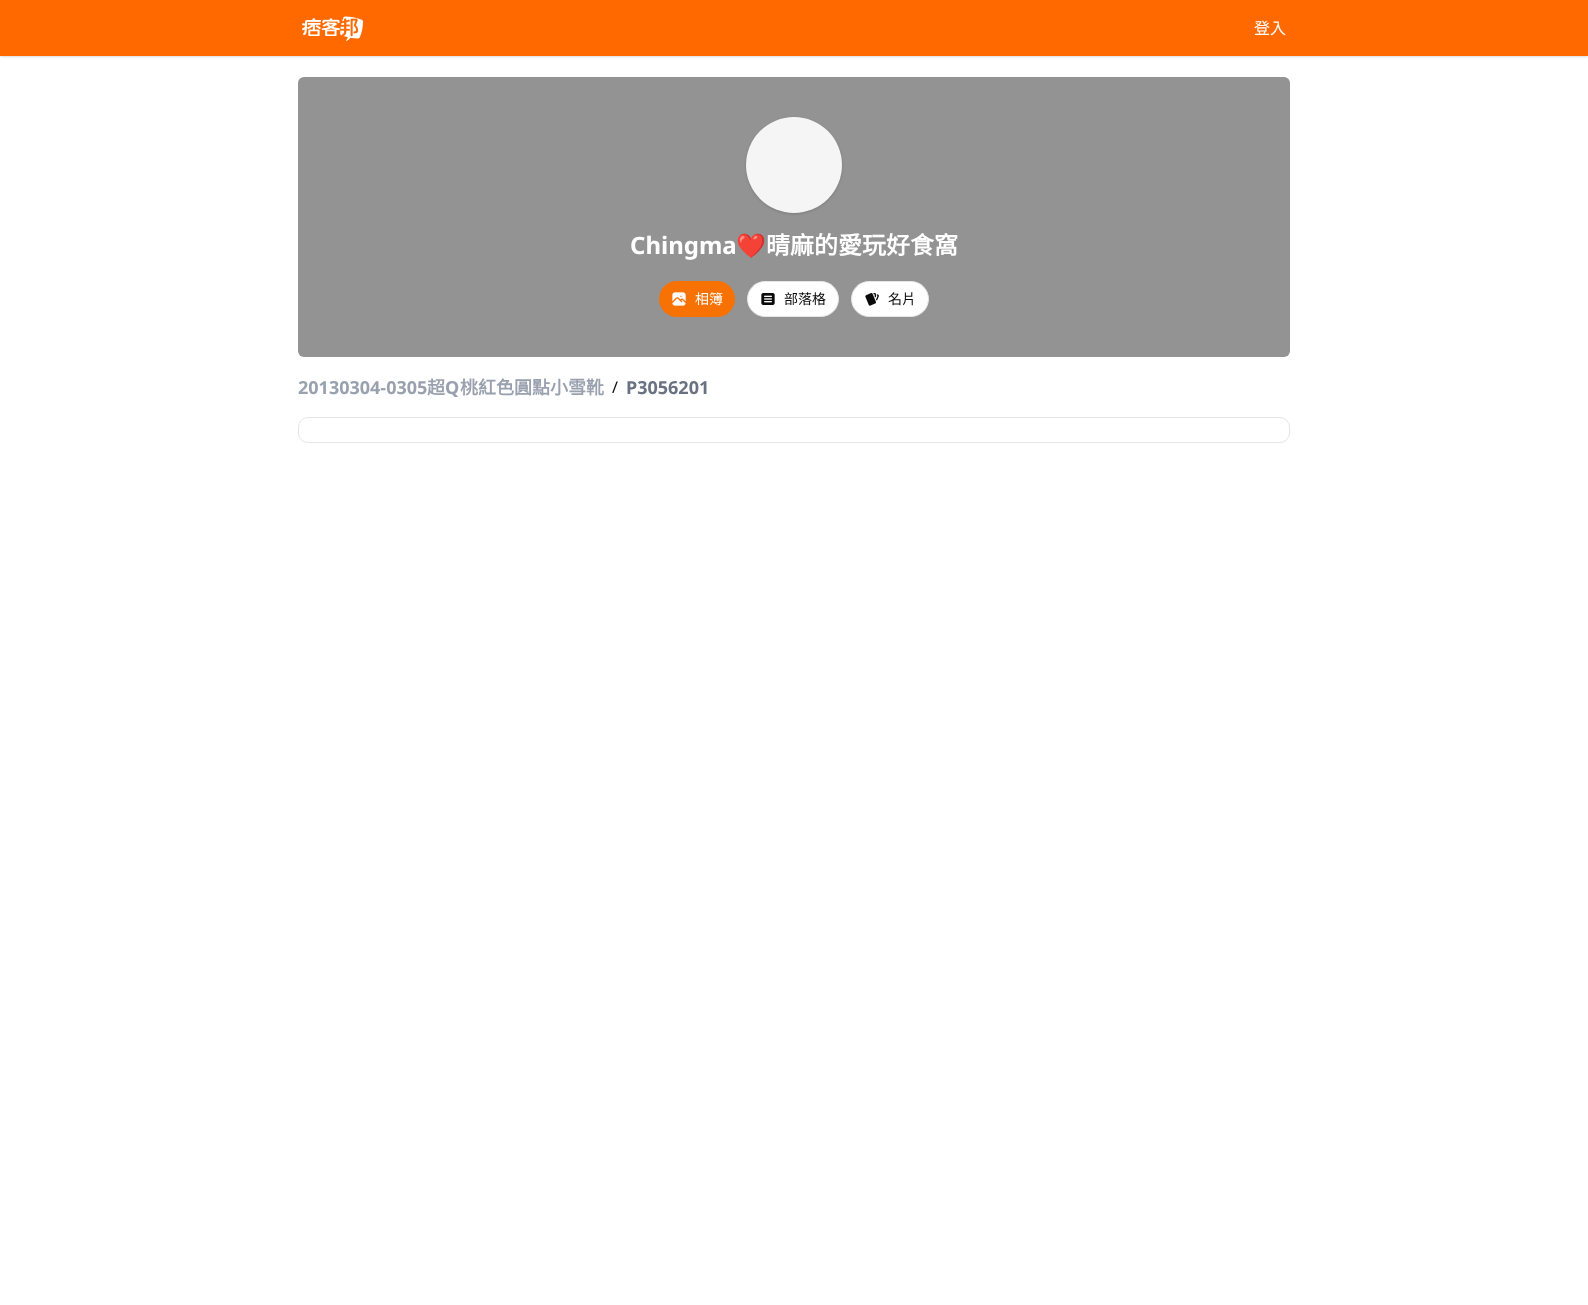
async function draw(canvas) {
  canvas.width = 1588
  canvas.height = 1305
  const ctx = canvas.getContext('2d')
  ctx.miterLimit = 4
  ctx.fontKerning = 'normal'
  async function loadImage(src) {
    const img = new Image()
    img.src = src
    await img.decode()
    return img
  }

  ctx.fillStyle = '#fff'
  ctx.fillRect(0, 0, 1588, 1305)
  ctx.fillStyle = '#0000001a'
  ctx.filter = 'blur(1px)'
  ctx.beginPath()
  ctx.rect(1, 2, 1586, 54)
  ctx.fill()
  ctx.filter = 'none'
  ctx.filter = 'blur(1.5px)'
  ctx.beginPath()
  ctx.rect(0, 1, 1588, 56)
  ctx.fill()
  ctx.filter = 'none'
  ctx.fillStyle = '#ff6900'
  ctx.fillRect(0, 0, 1588, 56)
  ctx.drawImage(await loadImage('image0.png'), 302, 16, 61, 25)
  ctx.font = '16px Noto Sans CJK TC'
  ctx.fillStyle = '#fff'
  ctx.fillText('登入', 1254, 34)
  ctx.fillStyle = '#939393'
  ctx.beginPath()
  ctx.roundRect(298, 77, 992, 280, 6)
  ctx.fill()
  ctx.fillStyle = '#0000001a'
  ctx.filter = 'blur(1px)'
  ctx.beginPath()
  ctx.roundRect(747, 119, 94, 94, 47)
  ctx.fill()
  ctx.filter = 'none'
  ctx.filter = 'blur(1.5px)'
  ctx.beginPath()
  ctx.roundRect(746, 118, 96, 96, 48)
  ctx.fill()
  ctx.filter = 'none'
  ctx.fillStyle = '#f5f5f5'
  ctx.beginPath()
  ctx.arc(794, 165, 48, 0, 2 * Math.PI)
  ctx.fill()
  ctx.font = 'bold 24px Noto Sans'
  ctx.fillStyle = '#fff'
  ctx.fillText('Chingma', 630, 254)
  ctx.font = 'bold 24px Noto Color Emoji'
  ctx.fillText('❤', 736, 254)
  ctx.font = 'bold 24px Noto Sans CJK TC'
  ctx.fillText('晴麻的愛玩好食窩', 766, 254)
  ctx.fillStyle = '#f87103'
  ctx.beginPath()
  ctx.roundRect(659, 281, 76, 36, 18)
  ctx.fill()
  ctx.drawImage(await loadImage('image1.png'), 672, 292, 14, 14)
  ctx.font = '14px Noto Sans CJK TC'
  ctx.fillStyle = '#fff'
  ctx.fillText('相簿', 695, 304)
  ctx.beginPath()
  ctx.roundRect(747.5, 281.5, 91, 35, 17.5)
  ctx.fill()
  ctx.strokeStyle = '#e5e5e5'
  ctx.stroke()
  ctx.drawImage(await loadImage('image2.png'), 761, 293, 14, 12)
  ctx.fillStyle = '#0a0a0a'
  ctx.fillText('部落格', 784, 304)
  ctx.fillStyle = '#fff'
  ctx.beginPath()
  ctx.roundRect(851.5, 281.5, 77, 35, 17.5)
  ctx.fill()
  ctx.stroke()
  ctx.drawImage(await loadImage('image3.png'), 865, 293, 14, 13)
  ctx.fillStyle = '#0a0a0a'
  ctx.fillText('名片', 888, 304)
  ctx.font = 'bold 18px Noto Sans'
  ctx.fillStyle = '#99a1af'
  ctx.fillText('20130304-0305', 298, 394)
  ctx.font = 'bold 18px Noto Sans CJK TC'
  ctx.fillText('超', 427, 394)
  ctx.font = 'bold 18px Noto Sans'
  ctx.fillText('Q', 445, 394)
  ctx.font = 'bold 18px Noto Sans CJK TC'
  ctx.fillText('桃紅色圓點小雪靴', 460, 394)
  ctx.font = '16px Noto Sans'
  ctx.fillStyle = '#0a0a0a'
  ctx.fillText('/', 612, 393)
  ctx.font = 'bold 18px Noto Sans'
  ctx.fillStyle = '#6a7282'
  ctx.fillText('P3056201', 626, 394)
  ctx.beginPath()
  ctx.roundRect(298.5, 417.5, 991, 25, 9.5)
  ctx.stroke()
}

draw(document.querySelector('canvas'))
